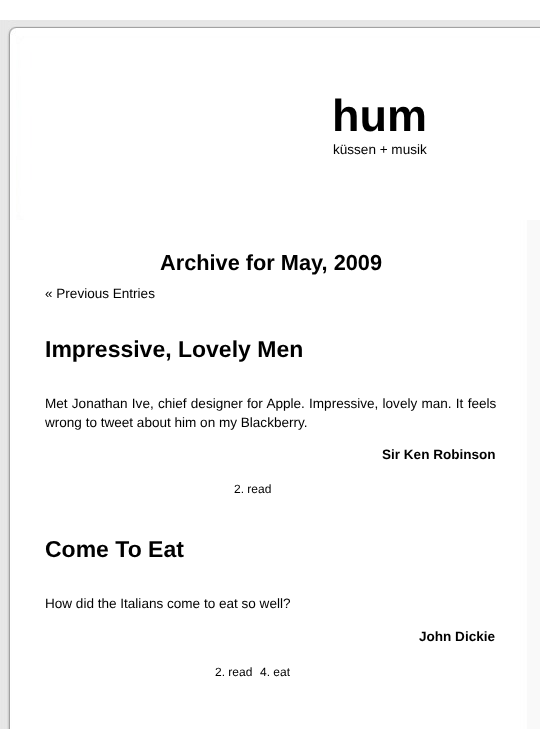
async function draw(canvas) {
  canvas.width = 540
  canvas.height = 729
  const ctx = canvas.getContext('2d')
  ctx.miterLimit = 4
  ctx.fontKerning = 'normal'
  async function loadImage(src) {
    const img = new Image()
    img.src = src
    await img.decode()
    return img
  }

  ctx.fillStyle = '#fff'
  ctx.fillRect(0, 0, 540, 729)
  ctx.drawImage(await loadImage('image0.png'), 0, 20, 540, 709)
  ctx.drawImage(await loadImage('image1.png'), 7, 20, 533, 200)
  ctx.font = 'bold 45px Liberation Sans'
  ctx.fillStyle = '#000'
  ctx.fillText('hum', 332, 131)
  ctx.font = '13.55px Liberation Sans'
  ctx.fillText('küssen + musik', 333, 154)
  ctx.font = 'bold 21.75px Liberation Sans'
  ctx.fillText('Archive for May, 2009', 160, 270)
  ctx.font = '13.55px Liberation Sans'
  ctx.fillText('« Previous Entries', 45, 298)
  ctx.font = 'bold 23px Liberation Sans'
  ctx.fillText('Impressive, Lovely Men', 45, 357)
  ctx.wordSpacing = '0.5px'
  ctx.font = '13.55px Liberation Sans'
  ctx.fillText('Met Jonathan Ive, chief designer for Apple. Impressive, lovely man. It feels', 45, 408)
  ctx.wordSpacing = '0px'
  ctx.fillText('wrong to tweet about him on my Blackberry.', 45, 427)
  ctx.font = 'bold 13.55px Liberation Sans'
  ctx.fillText('Sir Ken Robinson', 382, 459)
  ctx.font = '12px Liberation Sans'
  ctx.fillText('2. read', 234, 493)
  ctx.font = 'bold 23px Liberation Sans'
  ctx.fillText('Come To Eat', 45, 557)
  ctx.font = '13.55px Liberation Sans'
  ctx.fillText('How did the Italians come to eat so well?', 45, 608)
  ctx.font = 'bold 13.55px Liberation Sans'
  ctx.fillText('John Dickie', 419, 641)
  ctx.font = '12px Liberation Sans'
  ctx.fillText('2. read', 215, 676)
  ctx.fillText('4. eat', 260, 676)
}

draw(document.querySelector('canvas'))
